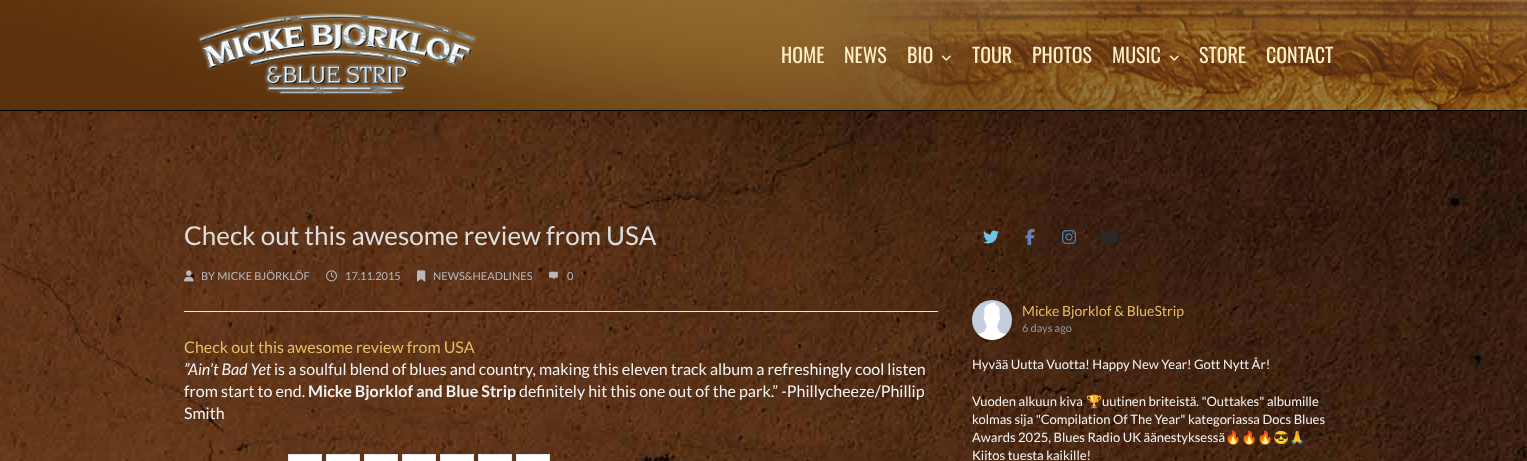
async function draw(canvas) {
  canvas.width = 1527
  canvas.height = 461
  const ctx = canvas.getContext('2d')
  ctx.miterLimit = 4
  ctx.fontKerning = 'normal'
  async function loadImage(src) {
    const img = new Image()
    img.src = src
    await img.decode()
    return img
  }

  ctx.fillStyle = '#fff'
  ctx.fillRect(0, 0, 1527, 461)
  ctx.drawImage(await loadImage('image0.png'), 0, 111, 1527, 350)
  ctx.fillStyle = '#00000014'
  ctx.filter = 'blur(5px)'
  ctx.beginPath()
  ctx.rect(0, 4, 1527, 111)
  ctx.fill()
  ctx.filter = 'none'
  ctx.drawImage(await loadImage('image1.png'), 0, 0, 1527, 110)
  ctx.fillStyle = '#000'
  ctx.fillRect(0, 110, 1527, 1)
  ctx.drawImage(await loadImage('image2.png'), 197, 13, 280, 82)
  ctx.font = '20px Oswald'
  ctx.fillStyle = '#ffedc4'
  ctx.fillText('HOME', 781, 63)
  ctx.fillText('NEWS', 844, 63)
  ctx.fillText('BIO', 907, 63)
  ctx.drawImage(await loadImage('image3.png'), 941, 55, 10, 6)
  ctx.fillText('TOUR', 972, 63)
  ctx.fillText('PHOTOS', 1032, 63)
  ctx.fillText('MUSIC', 1112, 63)
  ctx.drawImage(await loadImage('image4.png'), 1169, 55, 10, 6)
  ctx.fillText('STORE', 1199, 63)
  ctx.fillText('CONTACT', 1266, 63)
  ctx.font = '26px Lato'
  ctx.fillStyle = '#ddd'
  ctx.fillText('Check out this awesome review from USA', 184, 245)
  ctx.fillStyle = '#e2e8f0'
  ctx.fillRect(184, 311, 754, 1)
  ctx.drawImage(await loadImage('image5.png'), 184, 270, 10, 12)
  ctx.font = '11px Lato'
  ctx.fillStyle = '#b5b8bf'
  ctx.fillText('BY MICKE BJÖRKLÖF', 201, 280)
  ctx.drawImage(await loadImage('image6.png'), 326, 270, 11, 12)
  ctx.fillText('17.11.2015', 345, 280)
  ctx.drawImage(await loadImage('image7.png'), 417, 270, 9, 12)
  ctx.fillText('NEWS&HEADLINES', 433, 280)
  ctx.drawImage(await loadImage('image8.png'), 549, 271, 9, 9)
  ctx.fillText('0', 567, 280)
  ctx.font = '16px Lato'
  ctx.fillStyle = '#e5be62'
  ctx.fillText('Check out this awesome review from USA', 184, 353)
  ctx.font = 'italic 16px Lato'
  ctx.fillStyle = '#f2f2f2'
  ctx.fillText('”Ain’t Bad Yet', 184, 375)
  ctx.font = '16px Lato'
  ctx.fillText('is a soulful blend of blues and country, making this eleven track album a refreshingly cool listen', 274, 375)
  ctx.fillText('from start to end.', 184, 397)
  ctx.font = 'bold 16px Lato'
  ctx.fillText('Micke Bjorklof and Blue Strip', 308, 397)
  ctx.font = '16px Lato'
  ctx.fillText('definitely hit this one out of the park.” -Phillycheeze/Phillip', 519, 397)
  ctx.fillText('Smith', 184, 419)
  ctx.strokeStyle = '#e2e8f0'
  ctx.strokeRect(288.5, 454.5, 33, 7)
  ctx.fillStyle = '#fff'
  ctx.fillRect(289, 455, 32, 6)
  ctx.strokeRect(326.5, 454.5, 33, 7)
  ctx.fillRect(327, 455, 32, 6)
  ctx.strokeRect(364.5, 454.5, 33, 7)
  ctx.fillRect(365, 455, 32, 6)
  ctx.strokeRect(402.5, 454.5, 33, 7)
  ctx.fillRect(403, 455, 32, 6)
  ctx.strokeRect(440.5, 454.5, 33, 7)
  ctx.fillRect(441, 455, 32, 6)
  ctx.strokeRect(478.5, 454.5, 33, 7)
  ctx.fillRect(479, 455, 32, 6)
  ctx.strokeRect(516.5, 454.5, 33, 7)
  ctx.fillRect(517, 455, 32, 6)
  ctx.drawImage(await loadImage('image9.png'), 983, 230, 16, 14)
  ctx.drawImage(await loadImage('image10.png'), 1025, 229, 10, 16)
  ctx.drawImage(await loadImage('image11.png'), 1062, 230, 14, 14)
  ctx.drawImage(await loadImage('image12.png'), 1100, 231, 18, 12)
  ctx.drawImage(await loadImage('image13.png'), 972, 300, 40, 40)
  ctx.font = '14px Lato'
  ctx.fillStyle = '#e5be62'
  ctx.fillText('Micke Bjorklof & BlueStrip', 1022, 316)
  ctx.font = '11px Lato'
  ctx.fillStyle = '#9197a3'
  ctx.fillText('6 days ago', 1022, 332)
  ctx.font = '13px Lato'
  ctx.fillStyle = '#f2f2f2'
  ctx.fillText('Hyvää Uutta Vuotta! Happy New Year! Gott Nytt År!', 972, 369)
  ctx.fillText('Vuoden alkuun kiva', 972, 406)
  ctx.font = '13px Noto Color Emoji'
  ctx.fillText('🏆', 1086, 406)
  ctx.font = '13px Lato'
  ctx.fillText('uutinen briteistä. "Outtakes" albumille', 1102, 406)
  ctx.fillText('kolmas sija "Compilation Of The Year" kategoriassa Docs Blues', 972, 424)
  ctx.fillText('Awards 2025, Blues Radio UK äänestyksessä', 972, 442)
  ctx.font = '13px Noto Color Emoji'
  ctx.fillText('🔥🔥🔥😎🙏', 1225, 442)
  ctx.font = '13px Lato'
  ctx.fillText('Kiitos tuesta kaikille!', 972, 460)
}

draw(document.querySelector('canvas'))
